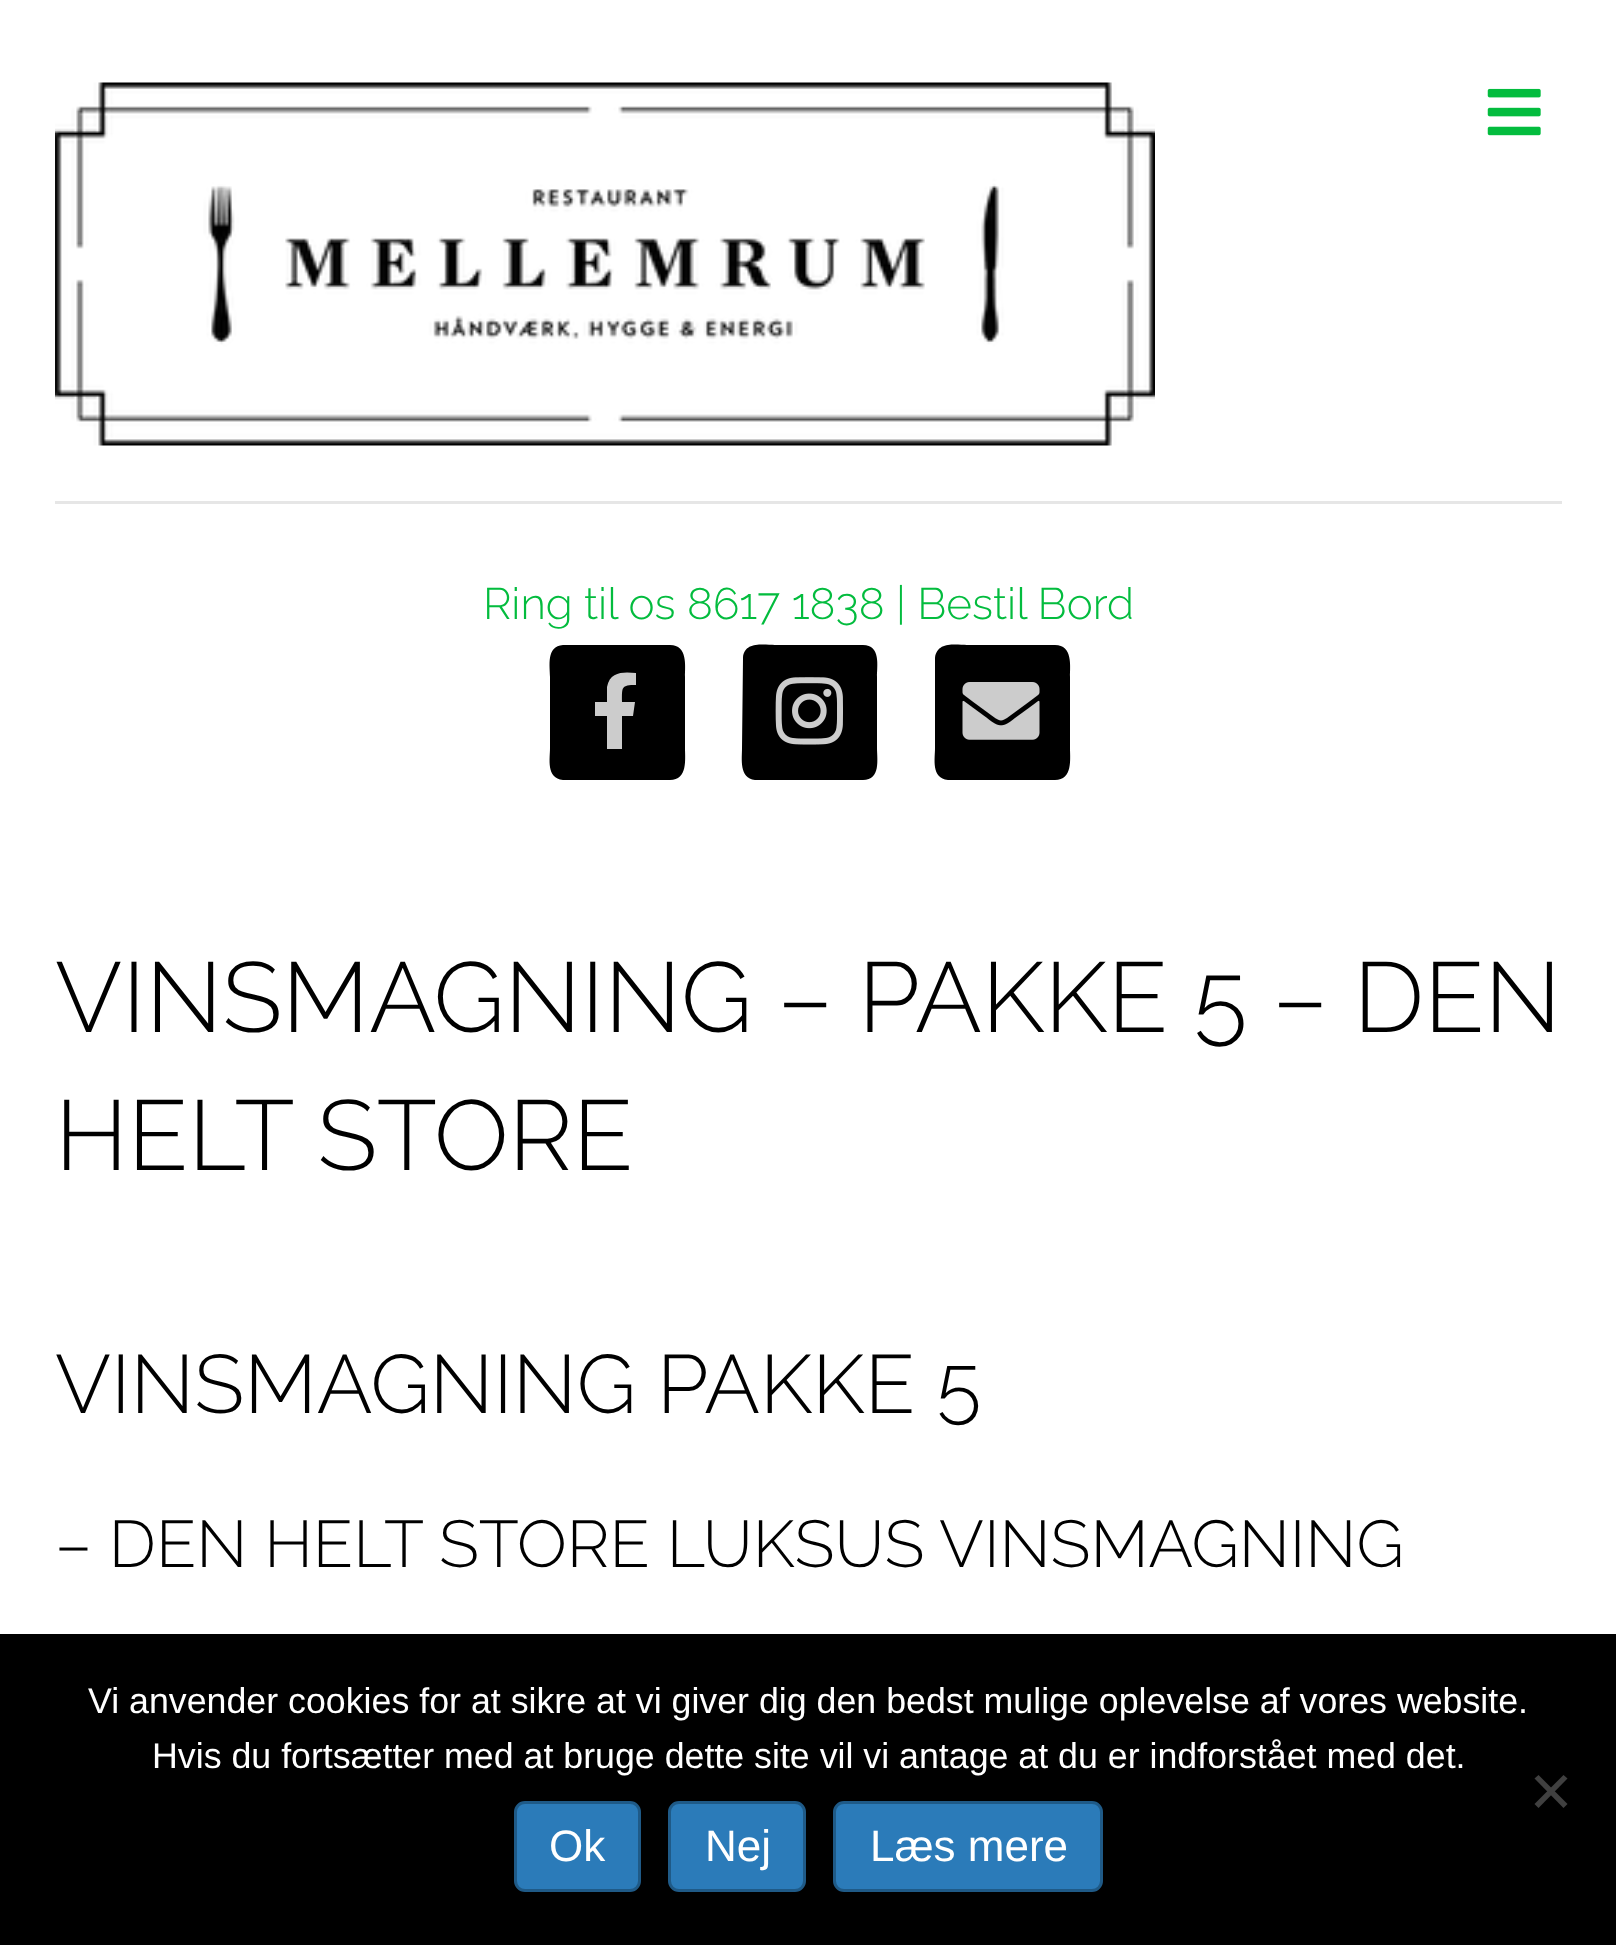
async function draw(canvas) {
  canvas.width = 1616
  canvas.height = 1945
  const ctx = canvas.getContext('2d')
  ctx.miterLimit = 4
  ctx.fontKerning = 'normal'
  async function loadImage(src) {
    const img = new Image()
    img.src = src
    await img.decode()
    return img
  }

  ctx.fillStyle = '#fff'
  ctx.fillRect(0, 0, 1616, 1945)
  ctx.drawImage(await loadImage('image0.png'), 1487, 88, 54, 48)
  ctx.drawImage(await loadImage('image1.png'), 55, 82, 1100, 364)
  ctx.fillStyle = '#e6e6e6'
  ctx.fillRect(55, 501, 1507, 3)
  ctx.font = '300 44px Raleway'
  ctx.fillStyle = '#03bc3e'
  ctx.fillText('Ring til os 8617 1838 | Bestil Bord', 483, 619)
  ctx.fillStyle = '#000'
  ctx.beginPath()
  ctx.moveTo(670, 645)
  ctx.bezierCurveTo(688, 645, 685, 666, 685, 677)
  ctx.lineTo(685, 748)
  ctx.bezierCurveTo(685, 759, 688, 780, 670, 780)
  ctx.lineTo(563, 780)
  ctx.bezierCurveTo(546, 778, 550, 759, 550, 748)
  ctx.lineTo(550, 677)
  ctx.bezierCurveTo(550, 666, 546, 646, 563, 645)
  ctx.closePath()
  ctx.fill()
  ctx.fillStyle = '#ccc'
  ctx.beginPath()
  ctx.moveTo(633, 716)
  ctx.lineTo(622, 716)
  ctx.lineTo(622, 749)
  ctx.lineTo(607, 749)
  ctx.lineTo(607, 716)
  ctx.lineTo(595, 716)
  ctx.lineTo(595, 702)
  ctx.lineTo(607, 702)
  ctx.lineTo(607, 687)
  ctx.bezierCurveTo(610, 671, 624, 672, 636, 673)
  ctx.lineTo(636, 685)
  ctx.bezierCurveTo(621, 685, 622, 687, 622, 702)
  ctx.lineTo(635, 702)
  ctx.closePath()
  ctx.fill()
  ctx.fillStyle = '#000'
  ctx.beginPath()
  ctx.moveTo(863, 645)
  ctx.bezierCurveTo(881, 645, 877, 666, 877, 677)
  ctx.lineTo(877, 748)
  ctx.bezierCurveTo(877, 759, 881, 780, 863, 780)
  ctx.lineTo(755, 780)
  ctx.bezierCurveTo(739, 778, 742, 759, 742, 748)
  ctx.lineTo(743, 658)
  ctx.bezierCurveTo(744, 641, 764, 645, 775, 645)
  ctx.closePath()
  ctx.fill()
  ctx.drawImage(await loadImage('image2.png'), 775, 677, 68, 68)
  ctx.beginPath()
  ctx.moveTo(1055, 645)
  ctx.bezierCurveTo(1073, 645, 1070, 666, 1070, 677)
  ctx.lineTo(1070, 748)
  ctx.bezierCurveTo(1070, 759, 1073, 780, 1055, 780)
  ctx.lineTo(948, 780)
  ctx.bezierCurveTo(931, 778, 935, 759, 935, 748)
  ctx.lineTo(935, 658)
  ctx.bezierCurveTo(937, 641, 956, 645, 967, 645)
  ctx.closePath()
  ctx.fill()
  ctx.drawImage(await loadImage('image3.png'), 962, 682, 78, 58)
  ctx.font = '300 99px Raleway'
  ctx.fillText('VINSMAGNING – PAKKE 5 – DEN', 55, 1032)
  ctx.fillText('HELT STORE', 55, 1170)
  ctx.font = '300 82.5px Raleway'
  ctx.fillText('VINSMAGNING PAKKE 5', 55, 1413)
  ctx.font = '300 66px Raleway'
  ctx.fillText('– DEN HELT STORE LUKSUS VINSMAGNING', 55, 1567)
  ctx.fillRect(0, 1634, 1616, 311)
  ctx.font = '35.75px Liberation Sans'
  ctx.fillStyle = '#fff'
  ctx.fillText('Vi anvender cookies for at sikre at vi giver dig den bedst mulige oplevelse af vores website.', 88, 1713)
  ctx.fillText('Hvis du fortsætter med at bruge dette site vil vi antage at du er indforstået med det.', 152, 1768)
  ctx.fillStyle = '#404040'
  ctx.beginPath()
  ctx.moveTo(1563.5, 1775)
  ctx.lineTo(1567.5, 1778.5)
  ctx.lineTo(1538.5, 1808)
  ctx.lineTo(1534.5, 1804)
  ctx.closePath()
  ctx.fill()
  ctx.beginPath()
  ctx.moveTo(1534.5, 1778.5)
  ctx.lineTo(1538.5, 1775)
  ctx.lineTo(1567.5, 1804)
  ctx.lineTo(1563.5, 1808)
  ctx.closePath()
  ctx.fill()
  ctx.fillStyle = '#2b7bb9'
  ctx.beginPath()
  ctx.roundRect(515.5, 1802.5, 124, 88, 9.5)
  ctx.fill()
  ctx.strokeStyle = '#1f5a87'
  ctx.lineWidth = 3
  ctx.stroke()
  ctx.font = '44px Liberation Sans'
  ctx.fillStyle = '#fff'
  ctx.fillText('Ok', 549, 1861)
  ctx.fillStyle = '#2b7bb9'
  ctx.beginPath()
  ctx.roundRect(669.5, 1802.5, 135, 88, 9.5)
  ctx.fill()
  ctx.stroke()
  ctx.fillStyle = '#fff'
  ctx.fillText('Nej', 705, 1861)
  ctx.fillStyle = '#2b7bb9'
  ctx.beginPath()
  ctx.roundRect(834.5, 1802.5, 267, 88, 9.5)
  ctx.fill()
  ctx.stroke()
  ctx.fillStyle = '#fff'
  ctx.fillText('Læs mere', 870, 1861)
}

draw(document.querySelector('canvas'))
